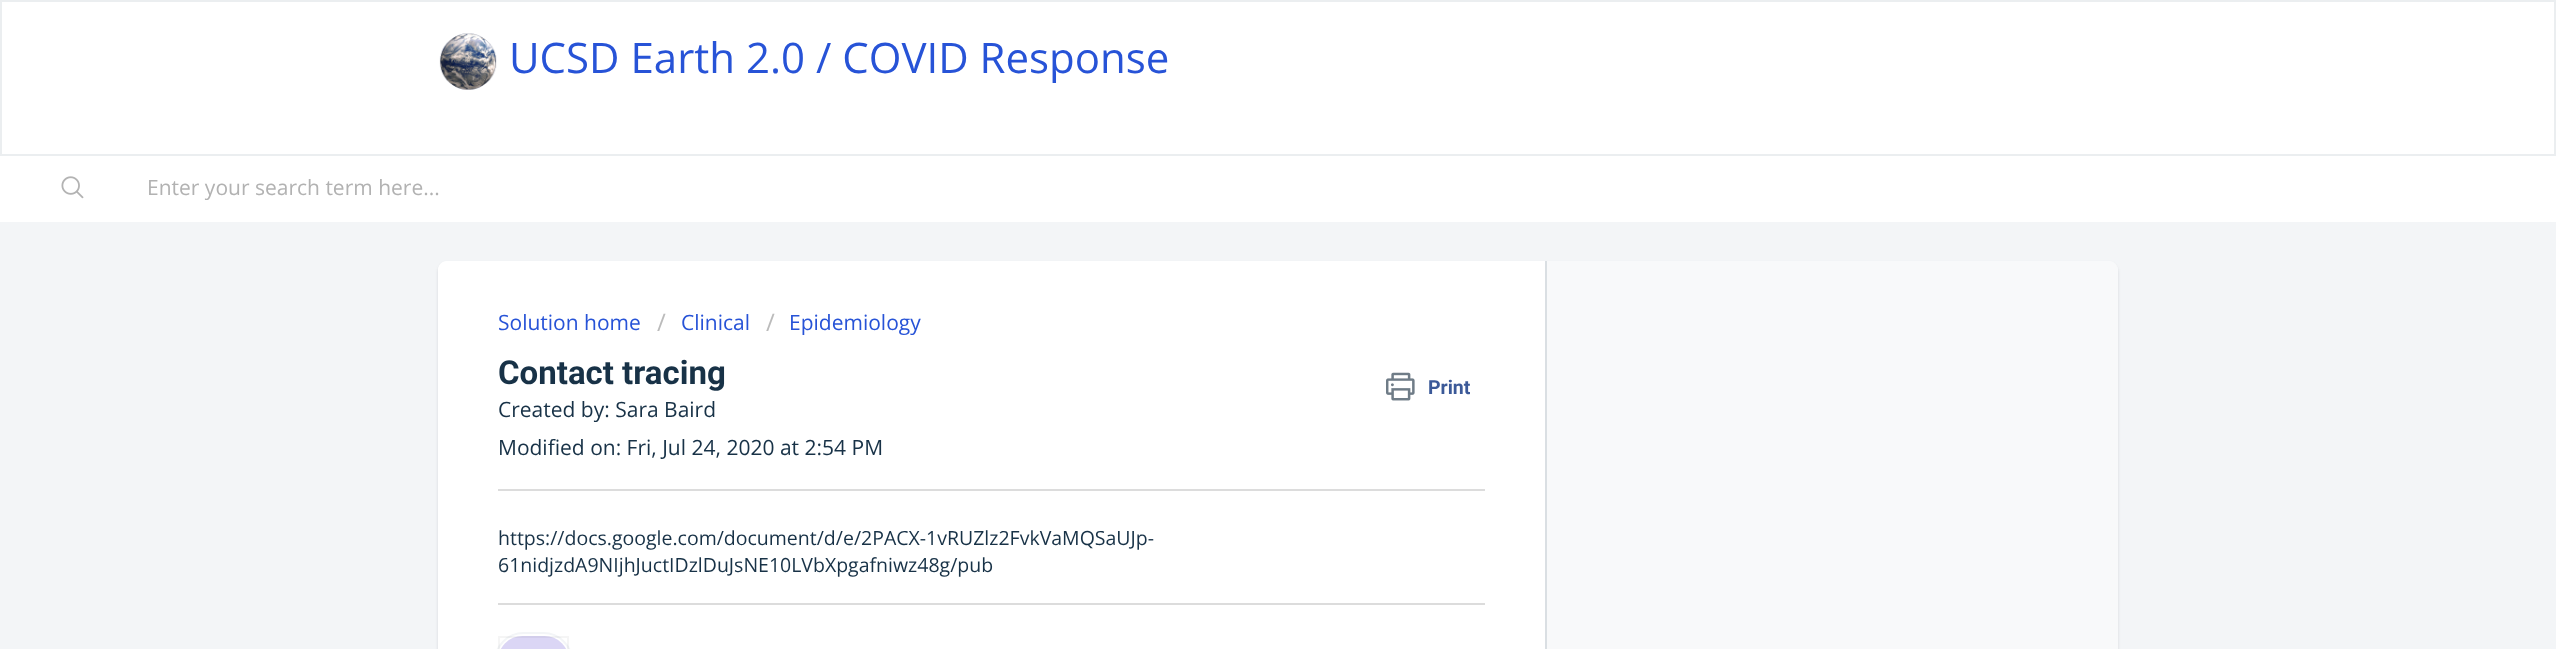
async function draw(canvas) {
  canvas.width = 2556
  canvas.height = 649
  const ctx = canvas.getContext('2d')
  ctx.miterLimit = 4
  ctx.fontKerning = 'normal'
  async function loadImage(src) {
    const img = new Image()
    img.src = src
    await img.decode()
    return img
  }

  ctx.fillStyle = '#f3f5f7'
  ctx.fillRect(0, 0, 2556, 649)
  ctx.fillStyle = '#fff'
  ctx.beginPath()
  ctx.rect(1, 1, 2554, 154)
  ctx.fill()
  ctx.strokeStyle = '#ebeef0'
  ctx.lineWidth = 2
  ctx.stroke()
  ctx.drawImage(await loadImage('image0.png'), 439, 33, 58, 57)
  ctx.font = '42px Open Sans'
  ctx.fillStyle = '#2753d7'
  ctx.fillText('UCSD Earth 2.0 / COVID Response', 509, 73)
  ctx.fillStyle = '#fff'
  ctx.fillRect(0, 156, 2556, 66)
  ctx.drawImage(await loadImage('image1.png'), 61, 176, 23, 23)
  ctx.font = '21px Open Sans'
  ctx.fillStyle = '#b2b2b2'
  ctx.fillText('Enter your search term here...', 147, 195)
  ctx.fillStyle = '#3f3f4426'
  ctx.filter = 'blur(1.5px)'
  ctx.beginPath()
  ctx.roundRect(438, 263, 1680, 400, 9)
  ctx.fill()
  ctx.filter = 'none'
  ctx.fillStyle = '#f8f9fa'
  ctx.beginPath()
  ctx.roundRect(438, 261, 1680, 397, 9)
  ctx.fill()
  ctx.beginPath()
  ctx.roundRect(1547, 261, 571, 30, [0, 9, 9, 0])
  ctx.fill()
  ctx.fillStyle = '#fff'
  ctx.beginPath()
  ctx.moveTo(447, 261)
  ctx.lineTo(1547, 261)
  ctx.lineTo(1547, 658)
  ctx.lineTo(447, 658)
  ctx.bezierCurveTo(442, 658, 438, 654, 438, 649)
  ctx.lineTo(438, 270)
  ctx.bezierCurveTo(438, 265, 442, 261, 447, 261)
  ctx.closePath()
  ctx.fill()
  ctx.fillStyle = '#dadfe3'
  ctx.fillRect(1545, 261, 2, 388)
  ctx.fillStyle = '#2753d7'
  ctx.fillText('Solution home', 498, 330)
  ctx.font = '24px Open Sans'
  ctx.fillStyle = '#bbb'
  ctx.fillText('/', 657, 331)
  ctx.font = '21px Open Sans'
  ctx.fillStyle = '#2753d7'
  ctx.fillText('Clinical', 681, 330)
  ctx.font = '24px Open Sans'
  ctx.fillStyle = '#bbb'
  ctx.fillText('/', 766, 331)
  ctx.font = '21px Open Sans'
  ctx.fillStyle = '#2753d7'
  ctx.fillText('Epidemiology', 789, 330)
  ctx.font = 'bold 33px Roboto'
  ctx.fillStyle = '#183247'
  ctx.fillText('Contact tracing', 498, 384)
  ctx.drawImage(await loadImage('image2.png'), 1386, 372, 29, 29)
  ctx.font = 'bold 19.5px Roboto'
  ctx.fillStyle = '#3b5998'
  ctx.fillText('Print', 1428, 394)
  ctx.font = '21px Open Sans'
  ctx.fillStyle = '#183247'
  ctx.fillText('Created by: Sara Baird', 498, 417)
  ctx.fillText('Modified on: Fri, Jul 24, 2020 at 2:54 PM', 498, 455)
  ctx.fillStyle = '#dcdcdc'
  ctx.fillRect(498, 489, 987, 2)
  ctx.font = '19.5px Open Sans'
  ctx.fillStyle = '#183247'
  ctx.fillText('https://docs.google.com/document/d/e/2PACX-1vRUZlz2FvkVaMQSaUJp-', 498, 545)
  ctx.fillText('61nidjzdA9NIjhJuctIDzlDuJsNE10LVbXpgafniwz48g/pub', 498, 572)
  ctx.fillStyle = '#dcdcdc'
  ctx.fillRect(498, 603, 987, 2)
  ctx.beginPath()
  ctx.roundRect(495, 633, 77, 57, 38.5)
  ctx.strokeStyle = '#f3f5f7'
  ctx.stroke()
  ctx.fillStyle = '#dbd6f5'
  ctx.beginPath()
  ctx.roundRect(498, 636, 71, 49, 35.5)
  ctx.fill()
  ctx.strokeStyle = '#0000000a'
  ctx.strokeRect(499, 637, 69, 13)
}

draw(document.querySelector('canvas'))
